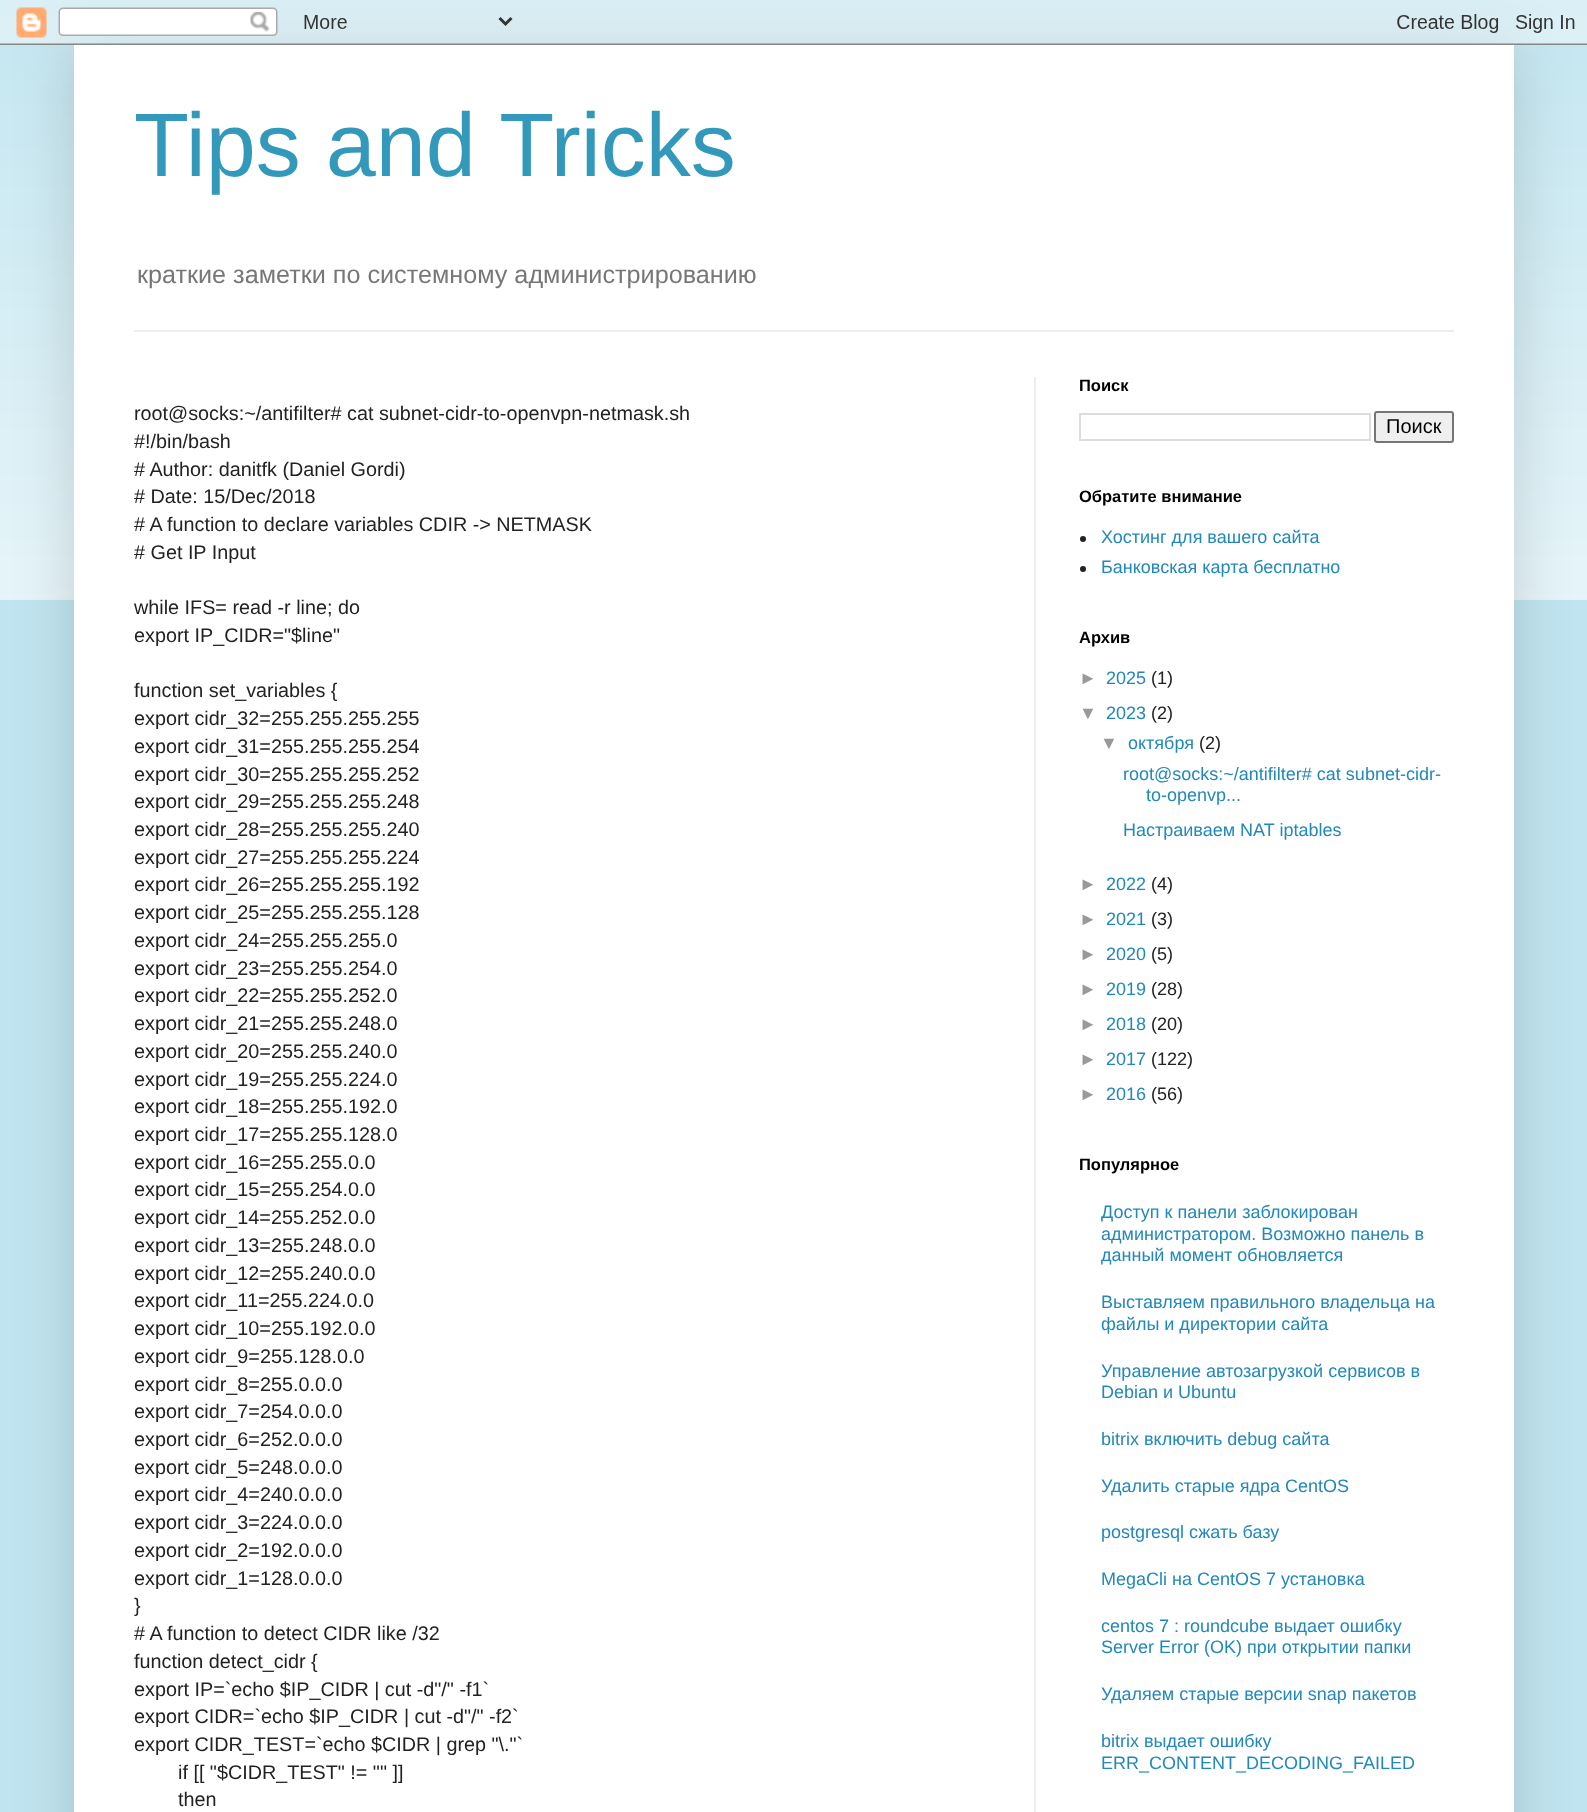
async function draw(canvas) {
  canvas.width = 1587
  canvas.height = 1812
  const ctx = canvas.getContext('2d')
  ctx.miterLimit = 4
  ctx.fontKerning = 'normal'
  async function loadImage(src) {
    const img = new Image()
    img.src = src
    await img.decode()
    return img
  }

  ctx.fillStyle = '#c1e5f0'
  ctx.fillRect(0, 0, 1587, 1812)
  ctx.drawImage(await loadImage('image1.png'), 0, 15, 1587, 585)
  ctx.fillStyle = '#00000026'
  ctx.filter = 'blur(30px)'
  ctx.beginPath()
  ctx.rect(74, 45, 1440, 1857)
  ctx.fill()
  ctx.filter = 'none'
  ctx.drawImage(await loadImage('image0.png'), 0, 0, 1587, 45)
  ctx.fillStyle = '#fff'
  ctx.fillRect(74, 45, 1440, 1767)
  ctx.font = '90px Liberation Sans'
  ctx.fillStyle = '#39b'
  ctx.fillText('Tips and Tricks', 134, 176)
  ctx.font = '25.2px Liberation Sans'
  ctx.fillStyle = '#777'
  ctx.fillText('краткие заметки по системному администрированию', 137, 283)
  ctx.fillStyle = '#eee'
  ctx.fillRect(134, 330, 1320, 2)
  ctx.fillRect(1034, 377, 2, 1435)
  ctx.font = '19.8px Liberation Sans'
  ctx.fillStyle = '#222'
  ctx.fillText('root@socks:~/antifilter# cat subnet-cidr-to-openvpn-netmask.sh', 134, 420)
  ctx.fillText('#!/bin/bash', 134, 448)
  ctx.fillText('# Author: danitfk (Daniel Gordi)', 134, 476)
  ctx.fillText('# Date: 15/Dec/2018', 134, 503)
  ctx.fillText('# A function to declare variables CDIR -> NETMASK', 134, 531)
  ctx.fillText('# Get IP Input', 134, 559)
  ctx.fillText('while IFS= read -r line; do', 134, 614)
  ctx.fillText('export IP_CIDR="$line"', 134, 642)
  ctx.fillText('function set_variables {', 134, 697)
  ctx.fillText('export cidr_32=255.255.255.255', 134, 725)
  ctx.fillText('export cidr_31=255.255.255.254', 134, 753)
  ctx.fillText('export cidr_30=255.255.255.252', 134, 781)
  ctx.fillText('export cidr_29=255.255.255.248', 134, 808)
  ctx.fillText('export cidr_28=255.255.255.240', 134, 836)
  ctx.fillText('export cidr_27=255.255.255.224', 134, 864)
  ctx.fillText('export cidr_26=255.255.255.192', 134, 891)
  ctx.fillText('export cidr_25=255.255.255.128', 134, 919)
  ctx.fillText('export cidr_24=255.255.255.0', 134, 947)
  ctx.fillText('export cidr_23=255.255.254.0', 134, 975)
  ctx.fillText('export cidr_22=255.255.252.0', 134, 1002)
  ctx.fillText('export cidr_21=255.255.248.0', 134, 1030)
  ctx.fillText('export cidr_20=255.255.240.0', 134, 1058)
  ctx.fillText('export cidr_19=255.255.224.0', 134, 1086)
  ctx.fillText('export cidr_18=255.255.192.0', 134, 1113)
  ctx.fillText('export cidr_17=255.255.128.0', 134, 1141)
  ctx.fillText('export cidr_16=255.255.0.0', 134, 1169)
  ctx.fillText('export cidr_15=255.254.0.0', 134, 1196)
  ctx.fillText('export cidr_14=255.252.0.0', 134, 1224)
  ctx.fillText('export cidr_13=255.248.0.0', 134, 1252)
  ctx.fillText('export cidr_12=255.240.0.0', 134, 1280)
  ctx.fillText('export cidr_11=255.224.0.0', 134, 1307)
  ctx.fillText('export cidr_10=255.192.0.0', 134, 1335)
  ctx.fillText('export cidr_9=255.128.0.0', 134, 1363)
  ctx.fillText('export cidr_8=255.0.0.0', 134, 1391)
  ctx.fillText('export cidr_7=254.0.0.0', 134, 1418)
  ctx.fillText('export cidr_6=252.0.0.0', 134, 1446)
  ctx.fillText('export cidr_5=248.0.0.0', 134, 1474)
  ctx.fillText('export cidr_4=240.0.0.0', 134, 1501)
  ctx.fillText('export cidr_3=224.0.0.0', 134, 1529)
  ctx.fillText('export cidr_2=192.0.0.0', 134, 1557)
  ctx.fillText('export cidr_1=128.0.0.0', 134, 1585)
  ctx.fillText('}', 134, 1612)
  ctx.fillText('# A function to detect CIDR like /32', 134, 1640)
  ctx.fillText('function detect_cidr {', 134, 1668)
  ctx.fillText('export IP=`echo $IP_CIDR | cut -d"/" -f1`', 134, 1696)
  ctx.fillText('export CIDR=`echo $IP_CIDR | cut -d"/" -f2`', 134, 1723)
  ctx.fillText('export CIDR_TEST=`echo $CIDR | grep "\\."`', 134, 1751)
  ctx.fillText('if [[ "$CIDR_TEST" != "" ]]', 178, 1779)
  ctx.fillText('then', 178, 1806)
  ctx.font = 'bold 16.5px Liberation Sans'
  ctx.fillStyle = '#000'
  ctx.fillText('Поиск', 1079, 391)
  ctx.strokeStyle = '#ddd'
  ctx.lineWidth = 2
  ctx.strokeRect(1080, 414, 290, 26)
  ctx.fillStyle = '#efefef'
  ctx.beginPath()
  ctx.roundRect(1375, 412, 78, 30, 2)
  ctx.fill()
  ctx.strokeStyle = '#767676'
  ctx.stroke()
  ctx.font = '20px Liberation Sans'
  ctx.fillStyle = '#000'
  ctx.fillText('Поиск', 1386, 433)
  ctx.font = 'bold 16.5px Liberation Sans'
  ctx.fillText('Обратите внимание', 1079, 502)
  ctx.fillStyle = '#222'
  ctx.beginPath()
  ctx.arc(1083, 539, 3, 0, 2 * Math.PI)
  ctx.fill()
  ctx.font = '18px Liberation Sans'
  ctx.fillStyle = '#28b'
  ctx.fillText('Хостинг для вашего сайта', 1101, 543)
  ctx.fillStyle = '#222'
  ctx.beginPath()
  ctx.arc(1083, 569, 3, 0, 2 * Math.PI)
  ctx.fill()
  ctx.fillStyle = '#28b'
  ctx.fillText('Банковская карта бесплатно', 1101, 573)
  ctx.font = 'bold 16.5px Liberation Sans'
  ctx.fillStyle = '#000'
  ctx.fillText('Архив', 1079, 643)
  ctx.font = '18px Liberation Sans'
  ctx.fillStyle = '#999'
  ctx.fillText('►', 1079, 684)
  ctx.fillStyle = '#28b'
  ctx.fillText('2025', 1106, 684)
  ctx.fillStyle = '#222'
  ctx.fillText('(1)', 1151, 684)
  ctx.fillStyle = '#999'
  ctx.fillText('▼', 1079, 719)
  ctx.fillStyle = '#28b'
  ctx.fillText('2023', 1106, 719)
  ctx.fillStyle = '#222'
  ctx.fillText('(2)', 1151, 719)
  ctx.fillStyle = '#999'
  ctx.fillText('▼', 1100, 749)
  ctx.fillStyle = '#28b'
  ctx.fillText('октября', 1128, 749)
  ctx.fillStyle = '#222'
  ctx.fillText('(2)', 1199, 749)
  ctx.fillStyle = '#28b'
  ctx.fillText('root@socks:~/antifilter# cat subnet-cidr-', 1123, 780)
  ctx.fillText('to-openvp...', 1146, 801)
  ctx.fillText('Настраиваем NAT iptables', 1123, 836)
  ctx.fillStyle = '#999'
  ctx.fillText('►', 1079, 890)
  ctx.fillStyle = '#28b'
  ctx.fillText('2022', 1106, 890)
  ctx.fillStyle = '#222'
  ctx.fillText('(4)', 1151, 890)
  ctx.fillStyle = '#999'
  ctx.fillText('►', 1079, 925)
  ctx.fillStyle = '#28b'
  ctx.fillText('2021', 1106, 925)
  ctx.fillStyle = '#222'
  ctx.fillText('(3)', 1151, 925)
  ctx.fillStyle = '#999'
  ctx.fillText('►', 1079, 960)
  ctx.fillStyle = '#28b'
  ctx.fillText('2020', 1106, 960)
  ctx.fillStyle = '#222'
  ctx.fillText('(5)', 1151, 960)
  ctx.fillStyle = '#999'
  ctx.fillText('►', 1079, 995)
  ctx.fillStyle = '#28b'
  ctx.fillText('2019', 1106, 995)
  ctx.fillStyle = '#222'
  ctx.fillText('(28)', 1151, 995)
  ctx.fillStyle = '#999'
  ctx.fillText('►', 1079, 1030)
  ctx.fillStyle = '#28b'
  ctx.fillText('2018', 1106, 1030)
  ctx.fillStyle = '#222'
  ctx.fillText('(20)', 1151, 1030)
  ctx.fillStyle = '#999'
  ctx.fillText('►', 1079, 1065)
  ctx.fillStyle = '#28b'
  ctx.fillText('2017', 1106, 1065)
  ctx.fillStyle = '#222'
  ctx.fillText('(122)', 1151, 1065)
  ctx.fillStyle = '#999'
  ctx.fillText('►', 1079, 1100)
  ctx.fillStyle = '#28b'
  ctx.fillText('2016', 1106, 1100)
  ctx.fillStyle = '#222'
  ctx.fillText('(56)', 1151, 1100)
  ctx.font = 'bold 16.5px Liberation Sans'
  ctx.fillStyle = '#000'
  ctx.fillText('Популярное', 1079, 1170)
  ctx.font = '18px Liberation Sans'
  ctx.fillStyle = '#28b'
  ctx.fillText('Доступ к панели заблокирован', 1101, 1218)
  ctx.fillText('администратором. Возможно панель в', 1101, 1240)
  ctx.fillText('данный момент обновляется', 1101, 1261)
  ctx.fillText('Выставляем правильного владельца на', 1101, 1308)
  ctx.fillText('файлы и директории сайта', 1101, 1330)
  ctx.fillText('Управление автозагрузкой сервисов в', 1101, 1377)
  ctx.fillText('Debian и Ubuntu', 1101, 1398)
  ctx.fillText('bitrix включить debug сайта', 1101, 1445)
  ctx.fillText('Удалить старые ядра CentOS', 1101, 1492)
  ctx.fillText('postgresql сжать базу', 1101, 1538)
  ctx.fillText('MegaCli на CentOS 7 установка', 1101, 1585)
  ctx.fillText('centos 7 : roundcube выдает ошибку', 1101, 1632)
  ctx.fillText('Server Error (OK) при открытии папки', 1101, 1653)
  ctx.fillText('Удаляем старые версии snap пакетов', 1101, 1700)
  ctx.fillText('bitrix выдает ошибку', 1101, 1747)
  ctx.fillText('ERR_CONTENT_DECODING_FAILED', 1101, 1769)
}

draw(document.querySelector('canvas'))
